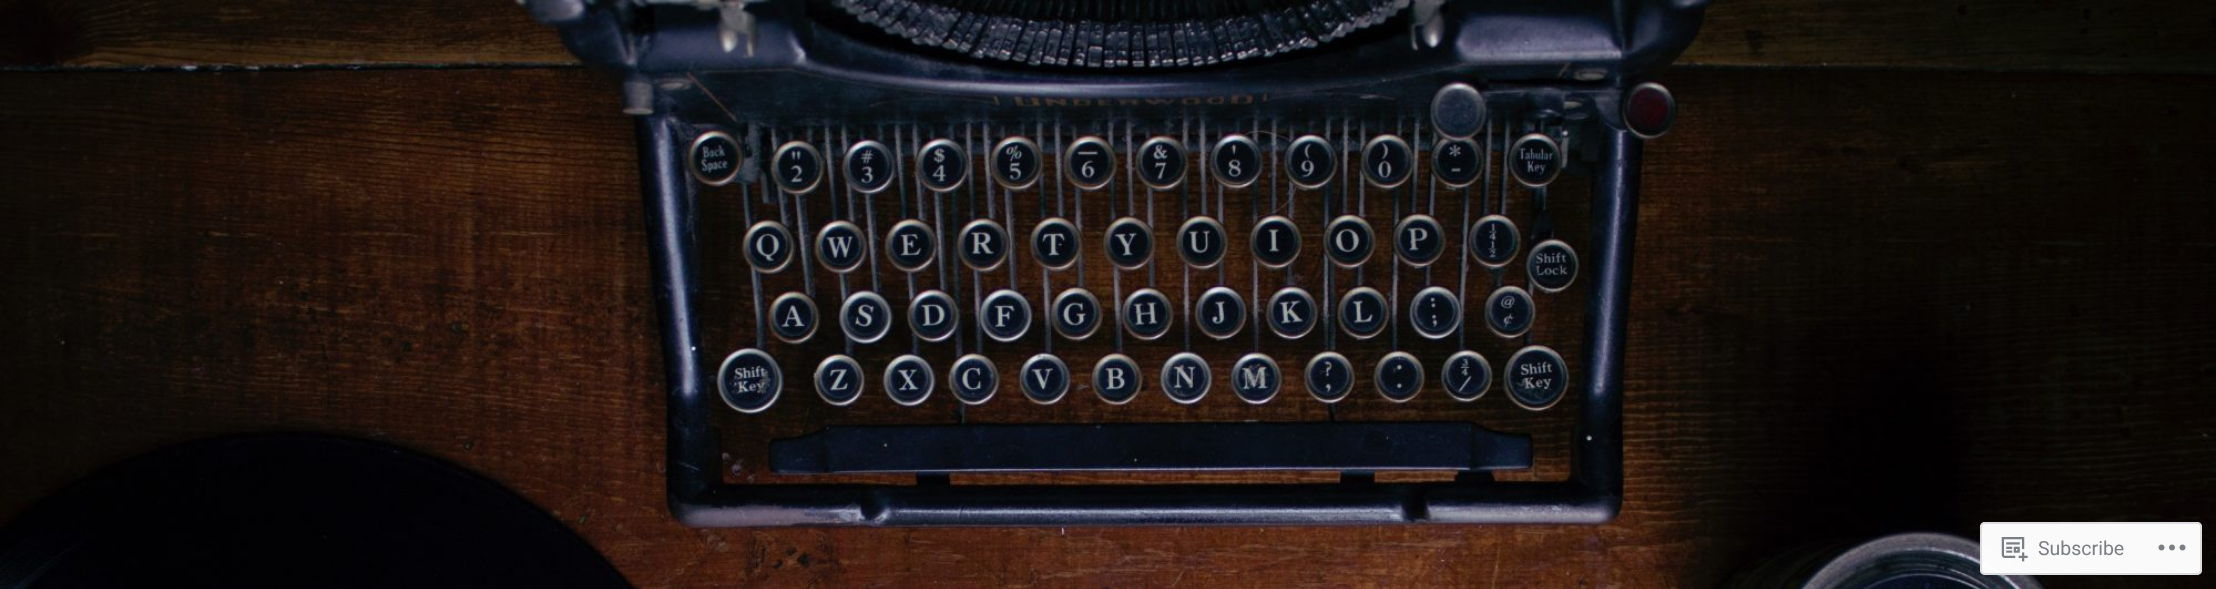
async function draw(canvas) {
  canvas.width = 2216
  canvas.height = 589
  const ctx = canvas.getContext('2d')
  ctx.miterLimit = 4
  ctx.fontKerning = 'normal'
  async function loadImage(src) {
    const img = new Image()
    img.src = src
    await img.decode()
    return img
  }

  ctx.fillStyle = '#fff'
  ctx.fillRect(0, 0, 2216, 589)
  ctx.drawImage(await loadImage('image0.png'), 0, 0, 2216, 589)
  ctx.fillStyle = '#fffffffa'
  ctx.beginPath()
  ctx.roundRect(1980, 522, 222, 53, 5)
  ctx.fill()
  ctx.beginPath()
  ctx.roundRect(1981, 523, 220, 51, 4)
  ctx.strokeStyle = '#dcdcdefa'
  ctx.lineWidth = 2
  ctx.stroke()
  ctx.drawImage(await loadImage('image1.png'), 2001, 537, 27, 25)
  ctx.font = '19.5px Roboto'
  ctx.fillStyle = '#7b7f84'
  ctx.fillText('Subscribe', 2038, 555)
  ctx.drawImage(await loadImage('image2.png'), 2158, 544, 28, 7)
}

draw(document.querySelector('canvas'))
